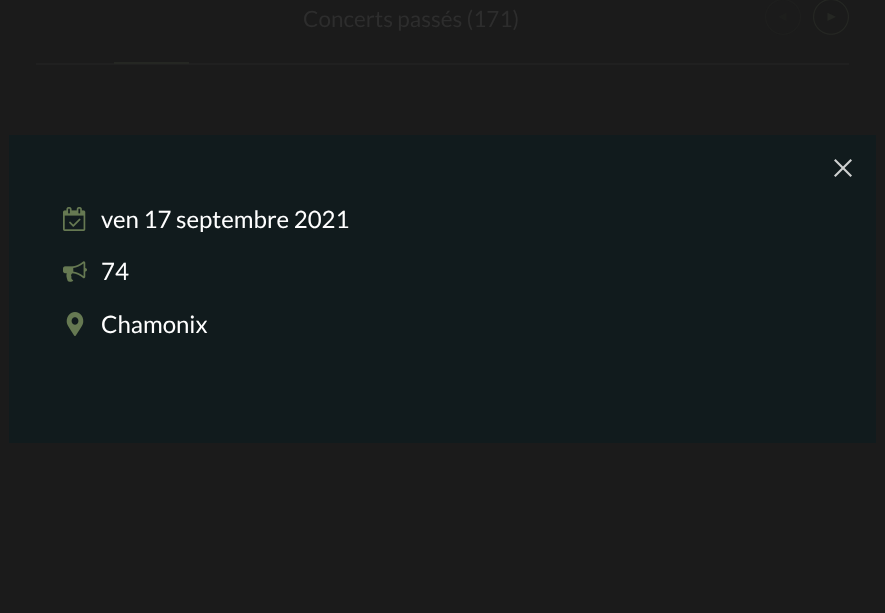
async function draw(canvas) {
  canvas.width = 885
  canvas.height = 613
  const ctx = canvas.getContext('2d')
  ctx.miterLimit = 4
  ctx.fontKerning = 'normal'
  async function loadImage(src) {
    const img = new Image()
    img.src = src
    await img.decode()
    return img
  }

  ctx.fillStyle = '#1b1b1b'
  ctx.fillRect(0, 0, 885, 613)
  ctx.fillStyle = '#202020'
  ctx.fillRect(36, 63, 813, 2)
  ctx.font = '22.5px Lato'
  ctx.fillStyle = '#2d2d2d'
  ctx.fillText('Concerts passés (171)', 303, 27)
  ctx.fillStyle = '#252723'
  ctx.fillRect(114, 62, 75, 2)
  ctx.drawImage(await loadImage('image0.png'), 765, 0, 36, 35)
  ctx.drawImage(await loadImage('image1.png'), 813, 0, 36, 35)
  ctx.fillStyle = '#111b1d'
  ctx.fillRect(9, 135, 867, 308)
  ctx.drawImage(await loadImage('image2.png'), 834, 159, 18, 18)
  ctx.drawImage(await loadImage('image3.png'), 63, 207, 23, 24)
  ctx.font = '24px Lato'
  ctx.fillStyle = '#fff'
  ctx.fillText('ven 17 septembre 2021', 101, 228)
  ctx.drawImage(await loadImage('image4.png'), 63, 261, 24, 21)
  ctx.fillText('74', 101, 280)
  ctx.drawImage(await loadImage('image5.png'), 66, 312, 18, 24)
  ctx.fillText('Chamonix', 101, 333)
}

draw(document.querySelector('canvas'))
